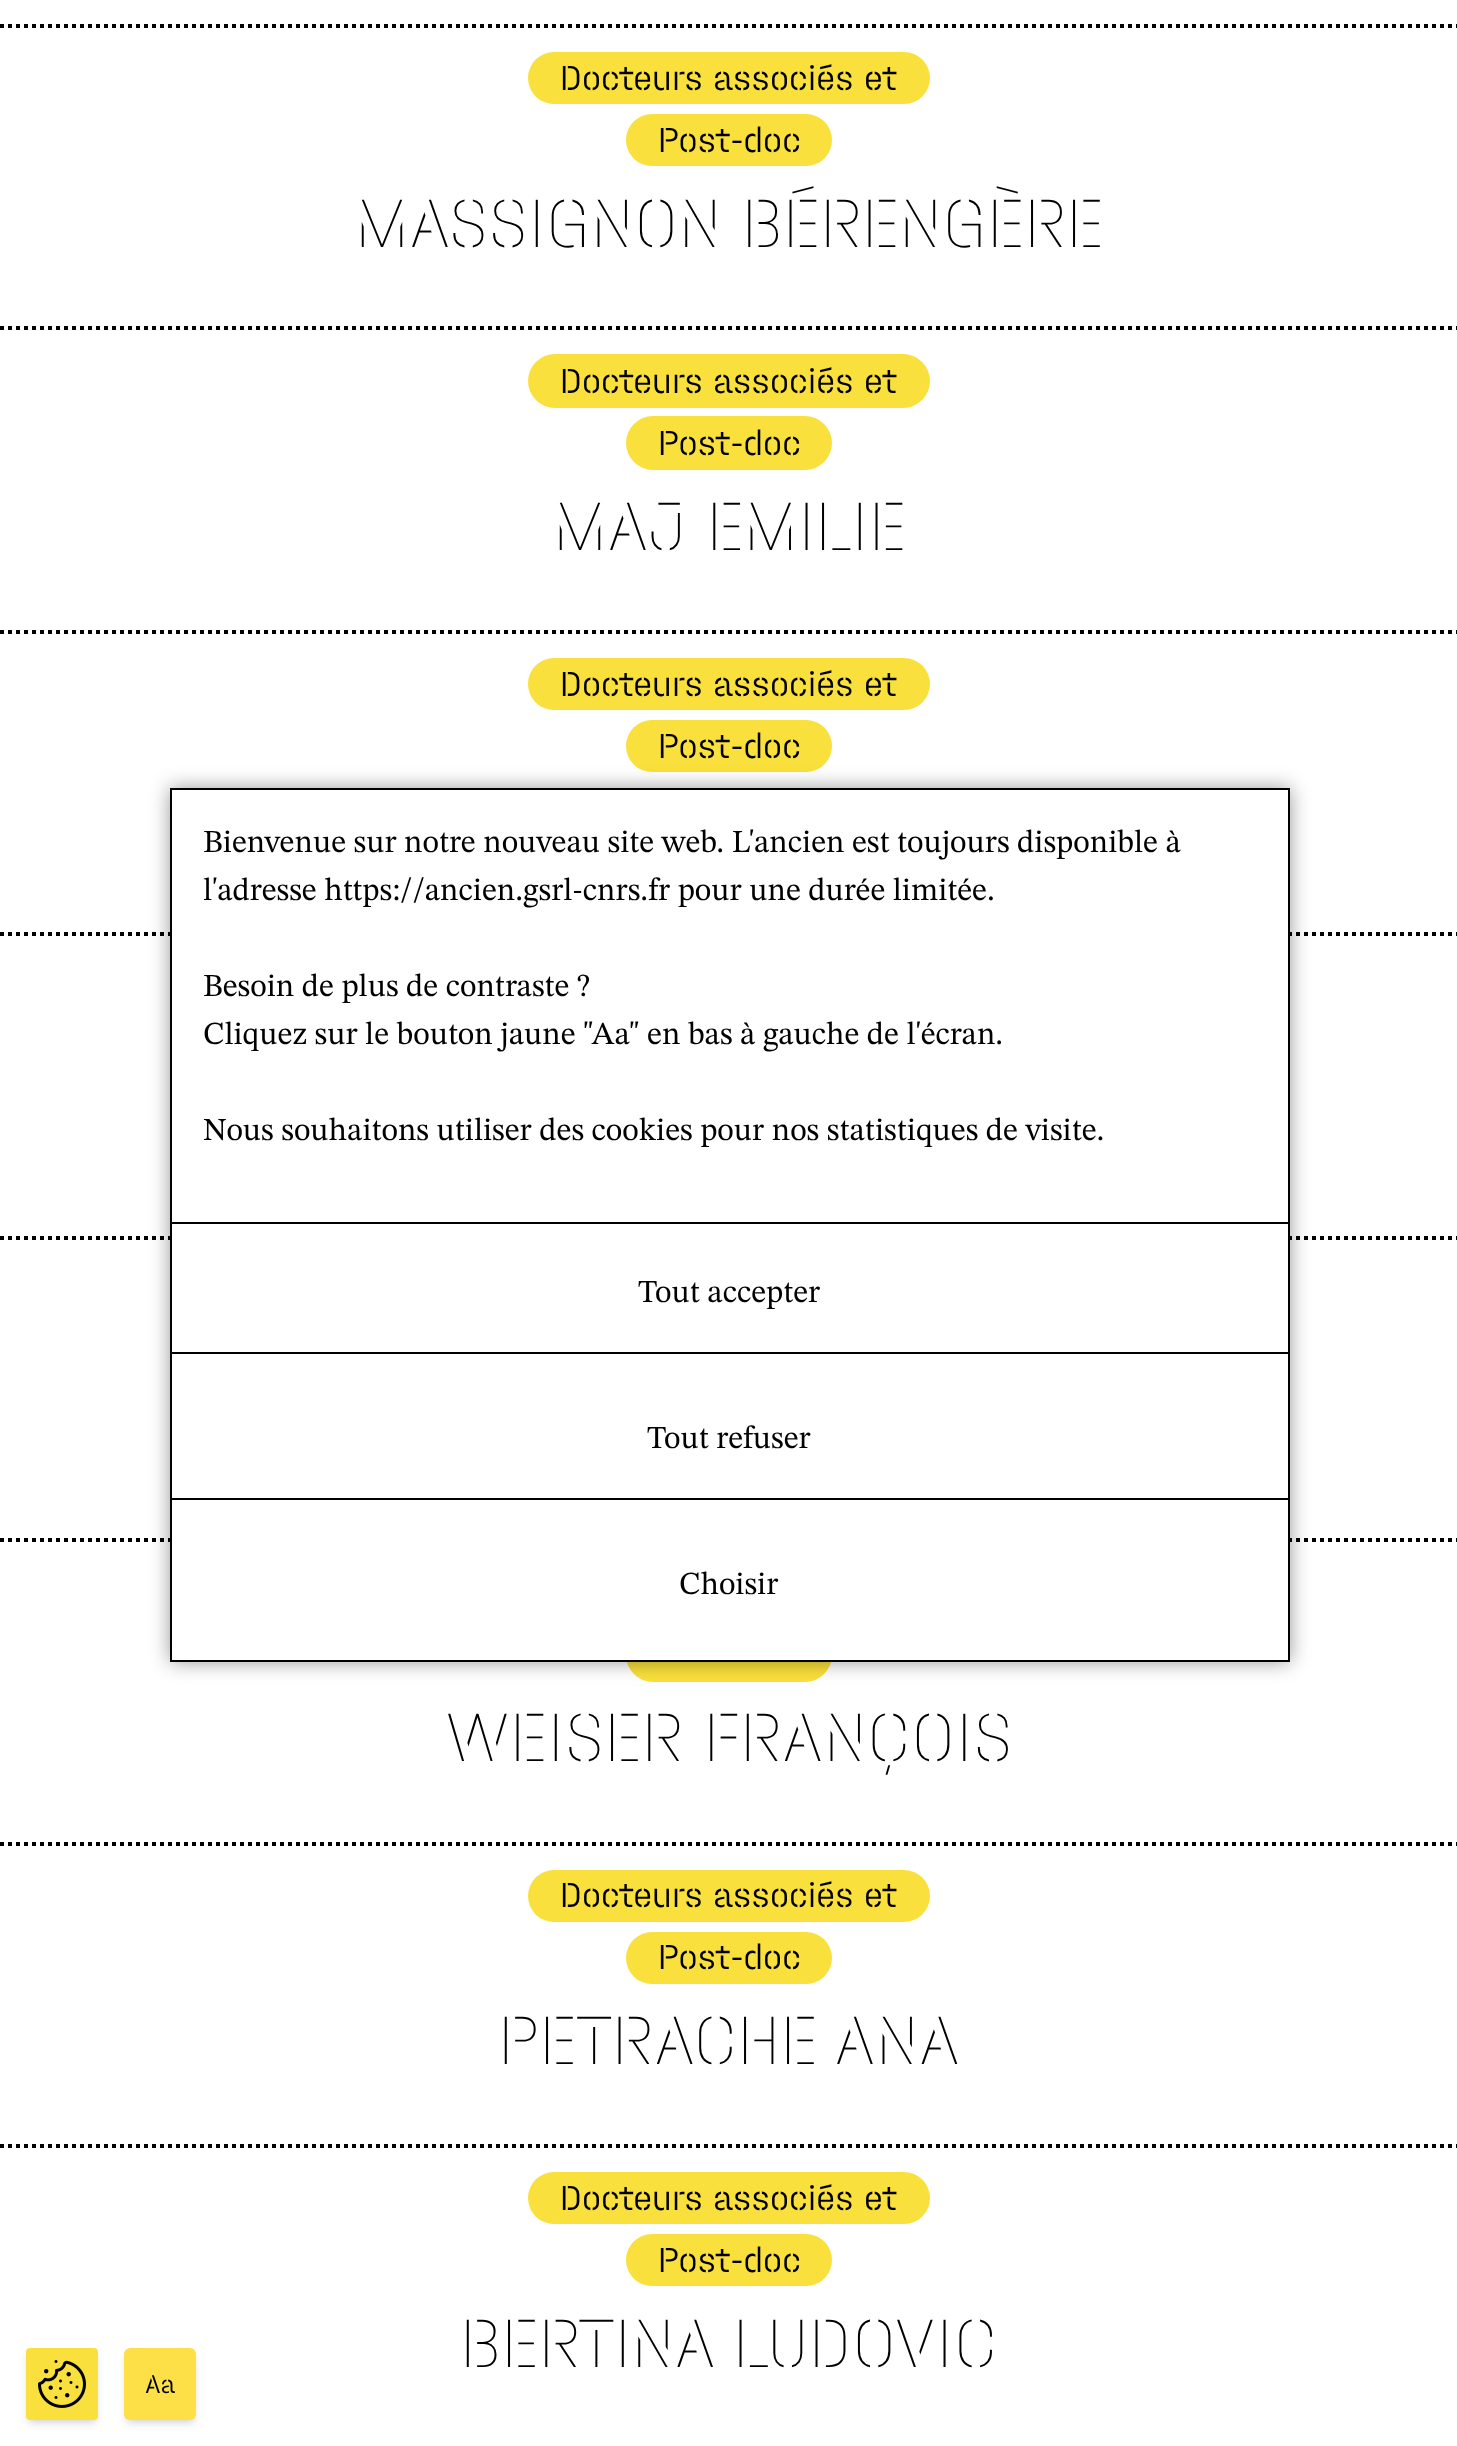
async function draw(canvas) {
  canvas.width = 1457
  canvas.height = 2446
  const ctx = canvas.getContext('2d')
  ctx.miterLimit = 4
  ctx.fontKerning = 'normal'
  async function loadImage(src) {
    const img = new Image()
    img.src = src
    await img.decode()
    return img
  }

  ctx.fillStyle = '#fff'
  ctx.fillRect(0, 0, 1457, 2446)
  ctx.beginPath()
  ctx.moveTo(0, 26)
  ctx.lineTo(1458, 26)
  ctx.strokeStyle = '#000'
  ctx.lineWidth = 4
  ctx.setLineDash([4, 4])
  ctx.stroke()
  ctx.beginPath()
  ctx.moveTo(0, 328)
  ctx.lineTo(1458, 328)
  ctx.stroke()
  ctx.fillStyle = '#fae03c'
  ctx.beginPath()
  ctx.roundRect(528, 52, 402, 52, 26)
  ctx.fill()
  ctx.font = '300 36.75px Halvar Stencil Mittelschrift'
  ctx.fillStyle = '#000'
  ctx.fillText('Docteurs associés et', 560, 90)
  ctx.fillStyle = '#fae03c'
  ctx.beginPath()
  ctx.roundRect(626, 114, 206, 52, 26)
  ctx.fill()
  ctx.fillStyle = '#000'
  ctx.fillText('Post-doc', 658, 152)
  ctx.font = '200 72px Halvar Stencil Mittelschrift'
  ctx.fillText('MASSIGNON BÉRENGÈRE', 355, 247)
  ctx.beginPath()
  ctx.moveTo(0, 632)
  ctx.lineTo(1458, 632)
  ctx.stroke()
  ctx.fillStyle = '#fae03c'
  ctx.beginPath()
  ctx.roundRect(528, 354, 402, 54, 27)
  ctx.fill()
  ctx.font = '300 36.75px Halvar Stencil Mittelschrift'
  ctx.fillStyle = '#000'
  ctx.fillText('Docteurs associés et', 560, 393)
  ctx.fillStyle = '#fae03c'
  ctx.beginPath()
  ctx.roundRect(626, 416, 206, 54, 27)
  ctx.fill()
  ctx.fillStyle = '#000'
  ctx.fillText('Post-doc', 658, 455)
  ctx.font = '200 72px Halvar Stencil Mittelschrift'
  ctx.fillText('MAJ EMILIE', 553, 550)
  ctx.beginPath()
  ctx.moveTo(0, 934)
  ctx.lineTo(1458, 934)
  ctx.stroke()
  ctx.fillStyle = '#fae03c'
  ctx.beginPath()
  ctx.roundRect(528, 658, 402, 52, 26)
  ctx.fill()
  ctx.font = '300 36.75px Halvar Stencil Mittelschrift'
  ctx.fillStyle = '#000'
  ctx.fillText('Docteurs associés et', 560, 696)
  ctx.fillStyle = '#fae03c'
  ctx.beginPath()
  ctx.roundRect(626, 720, 206, 52, 26)
  ctx.fill()
  ctx.fillStyle = '#000'
  ctx.fillText('Post-doc', 658, 758)
  ctx.beginPath()
  ctx.moveTo(0, 1238)
  ctx.lineTo(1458, 1238)
  ctx.stroke()
  ctx.beginPath()
  ctx.moveTo(0, 1540)
  ctx.lineTo(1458, 1540)
  ctx.stroke()
  ctx.beginPath()
  ctx.moveTo(0, 1844)
  ctx.lineTo(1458, 1844)
  ctx.stroke()
  ctx.fillStyle = '#fae03c'
  ctx.beginPath()
  ctx.roundRect(626, 1628, 206, 54, 27)
  ctx.fill()
  ctx.font = '200 72px Halvar Stencil Mittelschrift'
  ctx.fillStyle = '#000'
  ctx.fillText('WEISER FRANÇOIS', 445, 1761)
  ctx.beginPath()
  ctx.moveTo(0, 2146)
  ctx.lineTo(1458, 2146)
  ctx.stroke()
  ctx.fillStyle = '#fae03c'
  ctx.beginPath()
  ctx.roundRect(528, 1870, 402, 52, 26)
  ctx.fill()
  ctx.font = '300 36.75px Halvar Stencil Mittelschrift'
  ctx.fillStyle = '#000'
  ctx.fillText('Docteurs associés et', 560, 1907)
  ctx.fillStyle = '#fae03c'
  ctx.beginPath()
  ctx.roundRect(626, 1932, 206, 52, 26)
  ctx.fill()
  ctx.fillStyle = '#000'
  ctx.fillText('Post-doc', 658, 1969)
  ctx.font = '200 72px Halvar Stencil Mittelschrift'
  ctx.fillText('PETRACHE ANA', 498, 2064)
  ctx.fillStyle = '#fae03c'
  ctx.beginPath()
  ctx.roundRect(528, 2172, 402, 52, 26)
  ctx.fill()
  ctx.font = '300 36.75px Halvar Stencil Mittelschrift'
  ctx.fillStyle = '#000'
  ctx.fillText('Docteurs associés et', 560, 2210)
  ctx.fillStyle = '#fae03c'
  ctx.beginPath()
  ctx.roundRect(626, 2234, 206, 52, 26)
  ctx.fill()
  ctx.fillStyle = '#000'
  ctx.fillText('Post-doc', 658, 2272)
  ctx.font = '200 72px Halvar Stencil Mittelschrift'
  ctx.fillText('BERTINA LUDOVIC', 460, 2367)
  ctx.fillStyle = '#00000066'
  ctx.filter = 'blur(10px)'
  ctx.beginPath()
  ctx.rect(170, 788, 1120, 874)
  ctx.fill()
  ctx.filter = 'none'
  ctx.fillStyle = '#fff'
  ctx.beginPath()
  ctx.rect(171, 789, 1118, 872)
  ctx.fill()
  ctx.lineWidth = 2
  ctx.setLineDash([])
  ctx.stroke()
  ctx.font = '32px STIX Two Text'
  ctx.fillStyle = '#000'
  ctx.fillText('Bienvenue sur notre nouveau site web. L\'ancien est toujours disponible à', 203, 852)
  ctx.fillText('l\'adresse https://ancien.gsrl-cnrs.fr pour une durée limitée.', 203, 900)
  ctx.fillText('Besoin de plus de contraste ?', 203, 996)
  ctx.fillText('Cliquez sur le bouton jaune "Aa" en bas à gauche de l\'écran.', 203, 1044)
  ctx.fillText('Nous souhaitons utiliser des cookies pour nos statistiques de visite.', 203, 1140)
  ctx.fillRect(172, 1222, 1116, 2)
  ctx.fillRect(172, 1352, 1116, 2)
  ctx.fillText('Tout accepter', 638, 1302)
  ctx.fillRect(172, 1498, 1116, 2)
  ctx.fillText('Tout refuser', 647, 1448)
  ctx.fillText('Choisir', 679, 1594)
  ctx.fillStyle = '#0000001a'
  ctx.filter = 'blur(3px)'
  ctx.beginPath()
  ctx.roundRect(30, 2354, 66, 66, 2)
  ctx.fill()
  ctx.filter = 'none'
  ctx.filter = 'blur(4.5px)'
  ctx.beginPath()
  ctx.roundRect(28, 2356, 68, 68, 3)
  ctx.fill()
  ctx.filter = 'none'
  ctx.fillStyle = '#fae03d'
  ctx.beginPath()
  ctx.roundRect(26, 2348, 72, 72, 4)
  ctx.fill()
  ctx.drawImage(await loadImage('image0.png'), 38, 2360, 48, 48)
  ctx.fillStyle = '#0000001a'
  ctx.filter = 'blur(3px)'
  ctx.beginPath()
  ctx.roundRect(128, 2354, 66, 66, 3)
  ctx.fill()
  ctx.filter = 'none'
  ctx.filter = 'blur(4.5px)'
  ctx.beginPath()
  ctx.roundRect(126, 2356, 68, 68, 4)
  ctx.fill()
  ctx.filter = 'none'
  ctx.fillStyle = '#fde047'
  ctx.beginPath()
  ctx.roundRect(124, 2348, 72, 72, 6)
  ctx.fill()
  ctx.font = '300 27px Halvar Stencil Mittelschrift'
  ctx.fillStyle = '#000'
  ctx.fillText('Aa', 145, 2393)
}

draw(document.querySelector('canvas'))
